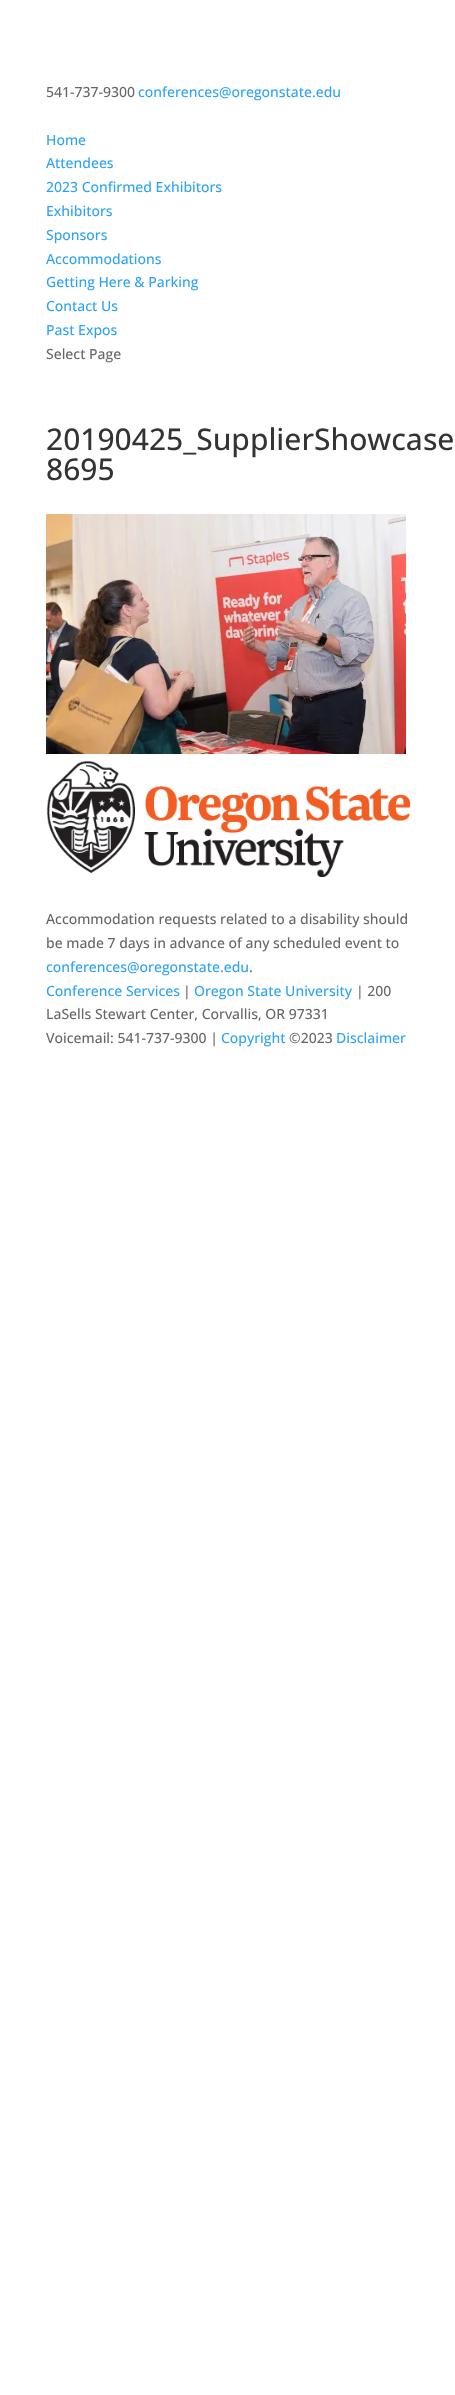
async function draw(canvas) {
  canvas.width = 455
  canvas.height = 2395
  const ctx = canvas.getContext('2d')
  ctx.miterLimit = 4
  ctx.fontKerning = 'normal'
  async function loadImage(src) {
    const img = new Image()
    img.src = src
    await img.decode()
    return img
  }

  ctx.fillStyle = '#fff'
  ctx.fillRect(0, 0, 455, 2395)
  ctx.font = '500 14px Open Sans'
  ctx.fillStyle = '#666'
  ctx.fillText('541-737-9300', 46, 97)
  ctx.fillStyle = '#2ea3f2'
  ctx.fillText('conferences@oregonstate.edu', 138, 97)
  ctx.fillText('Home', 46, 145)
  ctx.fillText('Attendees', 46, 168)
  ctx.fillText('2023 Confirmed Exhibitors', 46, 192)
  ctx.fillText('Exhibitors', 46, 216)
  ctx.fillText('Sponsors', 46, 240)
  ctx.fillText('Accommodations', 46, 264)
  ctx.fillText('Getting Here & Parking', 46, 287)
  ctx.fillText('Contact Us', 46, 311)
  ctx.fillText('Past Expos', 46, 335)
  ctx.fillStyle = '#666'
  ctx.fillText('Select Page', 46, 359)
  ctx.font = '500 30px Open Sans'
  ctx.fillStyle = '#333'
  ctx.fillText('20190425_SupplierShowcase', 46, 450)
  ctx.fillText('8695', 46, 480)
  ctx.drawImage(await loadImage('image0.png'), 46, 514, 360, 240)
  ctx.drawImage(await loadImage('image1.png'), 46, 760, 364, 117)
  ctx.font = '500 14px Open Sans'
  ctx.fillStyle = '#666'
  ctx.fillText('Accommodation requests related to a disability should', 46, 924)
  ctx.fillText('be made 7 days in advance of any scheduled event to', 46, 948)
  ctx.fillStyle = '#2ea3f2'
  ctx.fillText('conferences@oregonstate.edu', 46, 972)
  ctx.fillStyle = '#666'
  ctx.fillText('.', 249, 972)
  ctx.fillStyle = '#2ea3f2'
  ctx.fillText('Conference Services', 46, 996)
  ctx.fillStyle = '#666'
  ctx.fillText('|', 183, 996)
  ctx.fillStyle = '#2ea3f2'
  ctx.fillText('Oregon State University', 194, 996)
  ctx.fillStyle = '#666'
  ctx.fillText('| 200', 356, 996)
  ctx.fillText('LaSells Stewart Center, Corvallis, OR 97331', 46, 1019)
  ctx.fillText('Voicemail: 541-737-9300 |', 46, 1043)
  ctx.fillStyle = '#2ea3f2'
  ctx.fillText('Copyright', 221, 1043)
  ctx.fillStyle = '#666'
  ctx.fillText('©2023', 289, 1043)
  ctx.fillStyle = '#2ea3f2'
  ctx.fillText('Disclaimer', 336, 1043)
}

draw(document.querySelector('canvas'))
